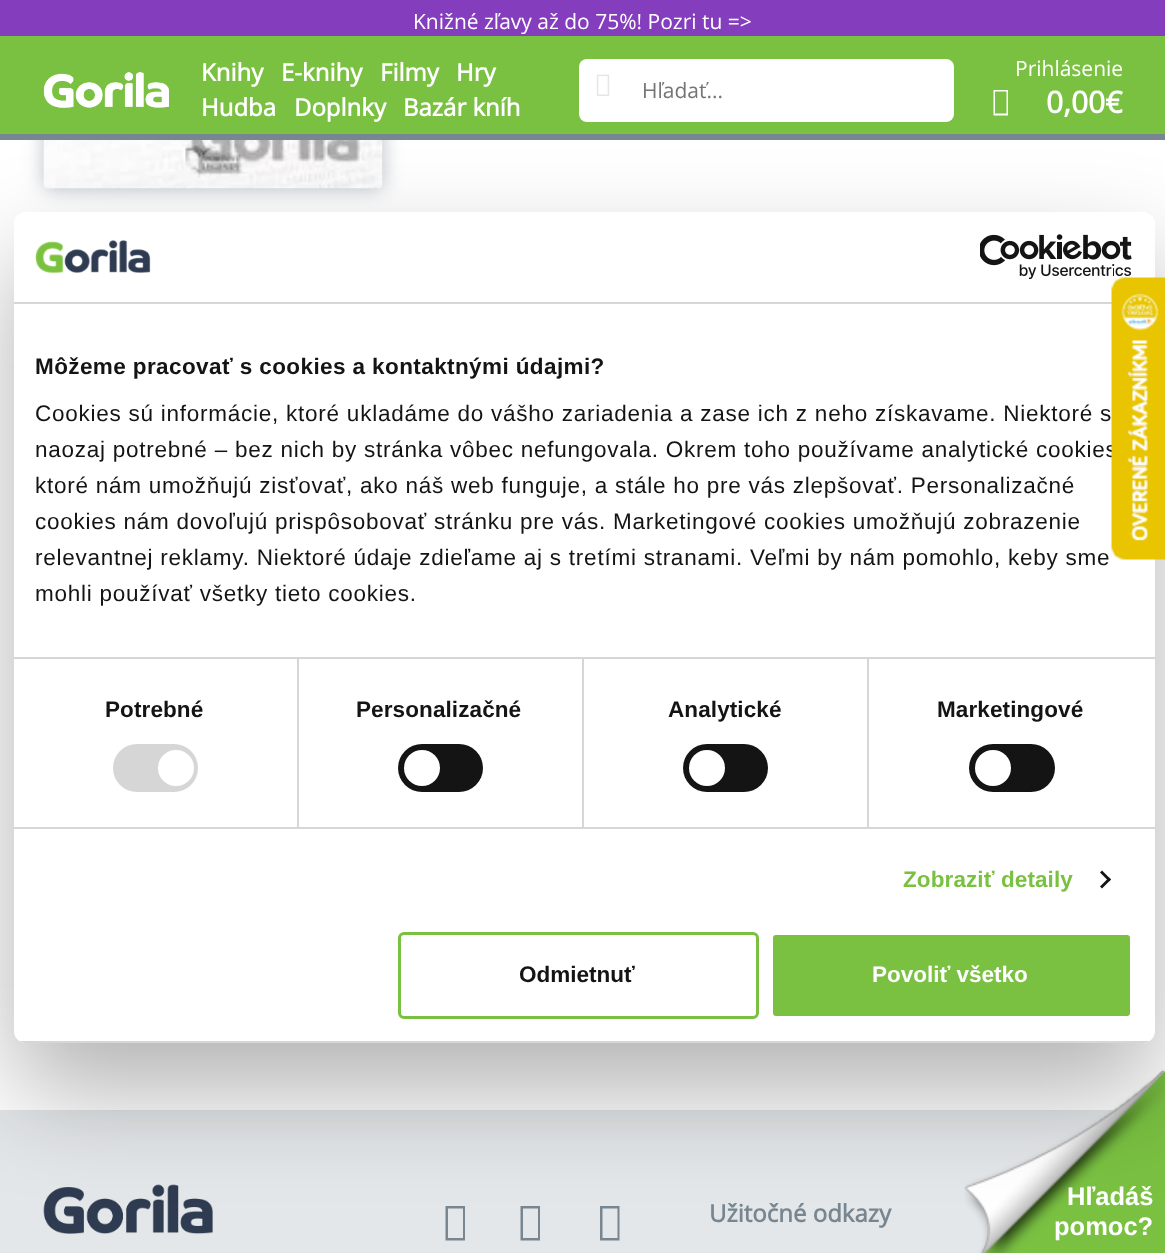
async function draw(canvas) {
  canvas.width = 1165
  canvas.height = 1253
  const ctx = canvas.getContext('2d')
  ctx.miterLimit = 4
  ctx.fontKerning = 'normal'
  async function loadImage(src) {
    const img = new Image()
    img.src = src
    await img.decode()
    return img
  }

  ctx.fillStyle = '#fff'
  ctx.fillRect(0, 0, 1165, 1253)
  ctx.fillStyle = '#77869180'
  ctx.filter = 'blur(10px)'
  ctx.beginPath()
  ctx.roundRect(44, -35, 339, 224, 5)
  ctx.fill()
  ctx.filter = 'none'
  ctx.drawImage(await loadImage('image0.png'), 43, 140, 340, 49)
  ctx.fillStyle = '#843dbc'
  ctx.fillRect(0, 0, 1165, 36)
  ctx.font = '21px Open Sans'
  ctx.fillStyle = '#fff'
  ctx.fillText('Knižné zľavy až do 75%! Pozri tu =>', 413, 29)
  ctx.fillStyle = '#7ac142'
  ctx.fillRect(0, 36, 1165, 98)
  ctx.fillStyle = '#778691'
  ctx.fillRect(0, 134, 1165, 6)
  ctx.drawImage(await loadImage('image1.png'), 43, 72, 126, 36)
  ctx.font = 'bold 24px Open Sans'
  ctx.fillStyle = '#fff'
  ctx.fillText('Knihy', 201, 81)
  ctx.fillText('E-knihy', 281, 81)
  ctx.fillText('Filmy', 380, 81)
  ctx.fillText('Hry', 456, 81)
  ctx.fillText('Hudba', 201, 116)
  ctx.fillText('Doplnky', 294, 116)
  ctx.fillText('Bazár kníh', 403, 116)
  ctx.beginPath()
  ctx.roundRect(579, 59, 375, 63, 8)
  ctx.fill()
  ctx.drawImage(await loadImage('image2.png'), 596, 74, 14, 22)
  ctx.font = '21px Open Sans'
  ctx.fillStyle = '#757575'
  ctx.fillText('Hľadať...', 642, 98)
  ctx.fillStyle = '#fff'
  ctx.fillText('Prihlásenie', 1015, 76)
  ctx.beginPath()
  ctx.moveTo(993.5, 115.5)
  ctx.lineTo(993.5, 90)
  ctx.lineTo(1008, 90)
  ctx.lineTo(1008, 115.5)
  ctx.closePath()
  ctx.moveTo(995, 113.5)
  ctx.lineTo(1006.5, 113.5)
  ctx.lineTo(1006.5, 91.5)
  ctx.lineTo(995, 91.5)
  ctx.closePath()
  ctx.fill()
  ctx.font = 'bold 30px Open Sans'
  ctx.fillText('0,00€', 1046, 113)
  ctx.fillStyle = '#e4e7e9'
  ctx.fillRect(0, 1110, 1125, 143)
  ctx.drawImage(await loadImage('image6.png'), 43, 1184, 170, 50)
  ctx.fillStyle = '#778691'
  ctx.beginPath()
  ctx.moveTo(445.5, 1240.5)
  ctx.lineTo(445.5, 1206)
  ctx.lineTo(465, 1206)
  ctx.lineTo(465, 1240.5)
  ctx.closePath()
  ctx.moveTo(448, 1238)
  ctx.lineTo(463, 1238)
  ctx.lineTo(463, 1208.5)
  ctx.lineTo(448, 1208.5)
  ctx.closePath()
  ctx.fill()
  ctx.beginPath()
  ctx.moveTo(520.5, 1240.5)
  ctx.lineTo(520.5, 1206)
  ctx.lineTo(540, 1206)
  ctx.lineTo(540, 1240.5)
  ctx.closePath()
  ctx.moveTo(523, 1238)
  ctx.lineTo(538, 1238)
  ctx.lineTo(538, 1208.5)
  ctx.lineTo(523, 1208.5)
  ctx.closePath()
  ctx.fill()
  ctx.beginPath()
  ctx.moveTo(600, 1240.5)
  ctx.lineTo(600, 1206)
  ctx.lineTo(619.5, 1206)
  ctx.lineTo(619.5, 1240.5)
  ctx.closePath()
  ctx.moveTo(602.5, 1238)
  ctx.lineTo(617.5, 1238)
  ctx.lineTo(617.5, 1208.5)
  ctx.lineTo(602.5, 1208.5)
  ctx.closePath()
  ctx.fill()
  ctx.fillStyle = '#7ac142'
  ctx.beginPath()
  ctx.moveTo(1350, 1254)
  ctx.lineTo(981, 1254)
  ctx.lineTo(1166, 1070)
  ctx.closePath()
  ctx.fill()
  ctx.drawImage(await loadImage('image7.png'), 964, 1069, 201, 184)
  ctx.fillStyle = '#0000004d'
  ctx.filter = 'blur(51px)'
  ctx.beginPath()
  ctx.roundRect(14, 260, 1141, 831, 12)
  ctx.fill()
  ctx.filter = 'none'
  ctx.fillStyle = '#fff'
  ctx.beginPath()
  ctx.roundRect(14, 212, 1141, 831, 12)
  ctx.fill()
  ctx.fillStyle = '#d6d6d6'
  ctx.fillRect(14, 302, 1098, 2)
  ctx.drawImage(await loadImage('image3.png'), 35, 240, 116, 34)
  ctx.drawImage(await loadImage('image4.png'), 980, 234, 152, 45)
  ctx.fillRect(14, 657, 1141, 2)
  ctx.letterSpacing = '0.4px'
  ctx.font = 'bold 22.5px Liberation Sans'
  ctx.fillStyle = '#141414'
  ctx.fillText('Môžeme pracovať s cookies a kontaktnými údajmi?', 35, 374)
  ctx.letterSpacing = '0.75px'
  ctx.font = '22.5px Liberation Sans'
  ctx.fillText('Cookies sú informácie, ktoré ukladáme do vášho zariadenia a zase ich z neho získavame. Niektoré s', 35, 421)
  ctx.fillText('naozaj potrebné – bez nich by stránka vôbec nefungovala. Okrem toho používame analytické cookies', 35, 457)
  ctx.fillText('ktoré nám umožňujú zisťovať, ako náš web funguje, a stále ho pre vás zlepšovať. Personalizačné', 35, 493)
  ctx.fillText('cookies nám dovoľujú prispôsobovať stránku pre vás. Marketingové cookies umožňujú zobrazenie', 35, 529)
  ctx.fillText('relevantnej reklamy. Niektoré údaje zdieľame aj s tretími stranami. Veľmi by nám pomohlo, keby sme', 35, 565)
  ctx.fillText('mohli používať všetky tieto cookies.', 35, 601)
  ctx.fillStyle = '#d6d6d6'
  ctx.fillRect(14, 827, 1141, 2)
  ctx.fillRect(297, 659, 2, 168)
  ctx.letterSpacing = '0.1px'
  ctx.font = 'bold 22.5px Liberation Sans'
  ctx.fillStyle = '#141414'
  ctx.fillText('Potrebné', 105, 717)
  ctx.fillStyle = '#d6d6d6'
  ctx.beginPath()
  ctx.roundRect(113, 744, 85, 48, 24)
  ctx.fill()
  ctx.fillStyle = '#fff'
  ctx.beginPath()
  ctx.arc(176, 768, 18, 0, 2 * Math.PI)
  ctx.fill()
  ctx.fillStyle = '#d6d6d6'
  ctx.fillRect(582, 659, 2, 168)
  ctx.fillStyle = '#141414'
  ctx.fillText('Personalizačné', 356, 717)
  ctx.beginPath()
  ctx.roundRect(398, 744, 85, 48, 24)
  ctx.fill()
  ctx.fillStyle = '#fff'
  ctx.beginPath()
  ctx.arc(422, 768, 18, 0, 2 * Math.PI)
  ctx.fill()
  ctx.fillStyle = '#d6d6d6'
  ctx.fillRect(867, 659, 2, 168)
  ctx.fillStyle = '#141414'
  ctx.fillText('Analytické', 668, 717)
  ctx.beginPath()
  ctx.roundRect(683, 744, 85, 48, 24)
  ctx.fill()
  ctx.fillStyle = '#fff'
  ctx.beginPath()
  ctx.arc(707, 768, 18, 0, 2 * Math.PI)
  ctx.fill()
  ctx.fillStyle = '#141414'
  ctx.fillText('Marketingové', 937, 717)
  ctx.beginPath()
  ctx.roundRect(969, 744, 86, 48, 24)
  ctx.fill()
  ctx.fillStyle = '#fff'
  ctx.beginPath()
  ctx.arc(993, 768, 18, 0, 2 * Math.PI)
  ctx.fill()
  ctx.fillStyle = '#7ac142'
  ctx.fillText('Zobraziť detaily', 903, 887)
  ctx.fillStyle = '#141414'
  ctx.beginPath()
  ctx.moveTo(1102, 870.5)
  ctx.lineTo(1111, 879.5)
  ctx.lineTo(1109, 881.5)
  ctx.lineTo(1100, 872.5)
  ctx.closePath()
  ctx.fill()
  ctx.beginPath()
  ctx.moveTo(1109, 877.5)
  ctx.lineTo(1111, 879.5)
  ctx.lineTo(1102, 888.5)
  ctx.lineTo(1100, 886.5)
  ctx.closePath()
  ctx.fill()
  ctx.save()
  ctx.beginPath()
  ctx.roundRect(14, 212, 1141, 831, 12)
  ctx.clip()
  ctx.fillStyle = '#d6d6d6'
  ctx.fillRect(14, 1041, 1141, 2)
  ctx.restore()
  ctx.beginPath()
  ctx.roundRect(399.5, 933.5, 358, 84, 4.5)
  ctx.strokeStyle = '#7ac142'
  ctx.lineWidth = 3
  ctx.stroke()
  ctx.letterSpacing = '0px'
  ctx.fillText('Odmietnuť', 519, 982)
  ctx.fillStyle = '#7ac142'
  ctx.beginPath()
  ctx.roundRect(771.5, 933.5, 360, 84, 4.5)
  ctx.fill()
  ctx.strokeStyle = '#fff'
  ctx.stroke()
  ctx.fillStyle = '#fff'
  ctx.fillText('Povoliť všetko', 872, 982)
  ctx.drawImage(await loadImage('image5.png'), 1111, 277, 54, 283)
  ctx.font = 'bold 24px Open Sans'
  ctx.fillStyle = '#778691'
  ctx.fillText('Užitočné odkazy', 709, 1222)
  ctx.font = 'bold 25.5px Liberation Sans'
  ctx.fillStyle = '#fff'
  ctx.fillText('Hľadáš', 1067, 1205)
  ctx.fillText('pomoc?', 1054, 1235)
}

draw(document.querySelector('canvas'))
